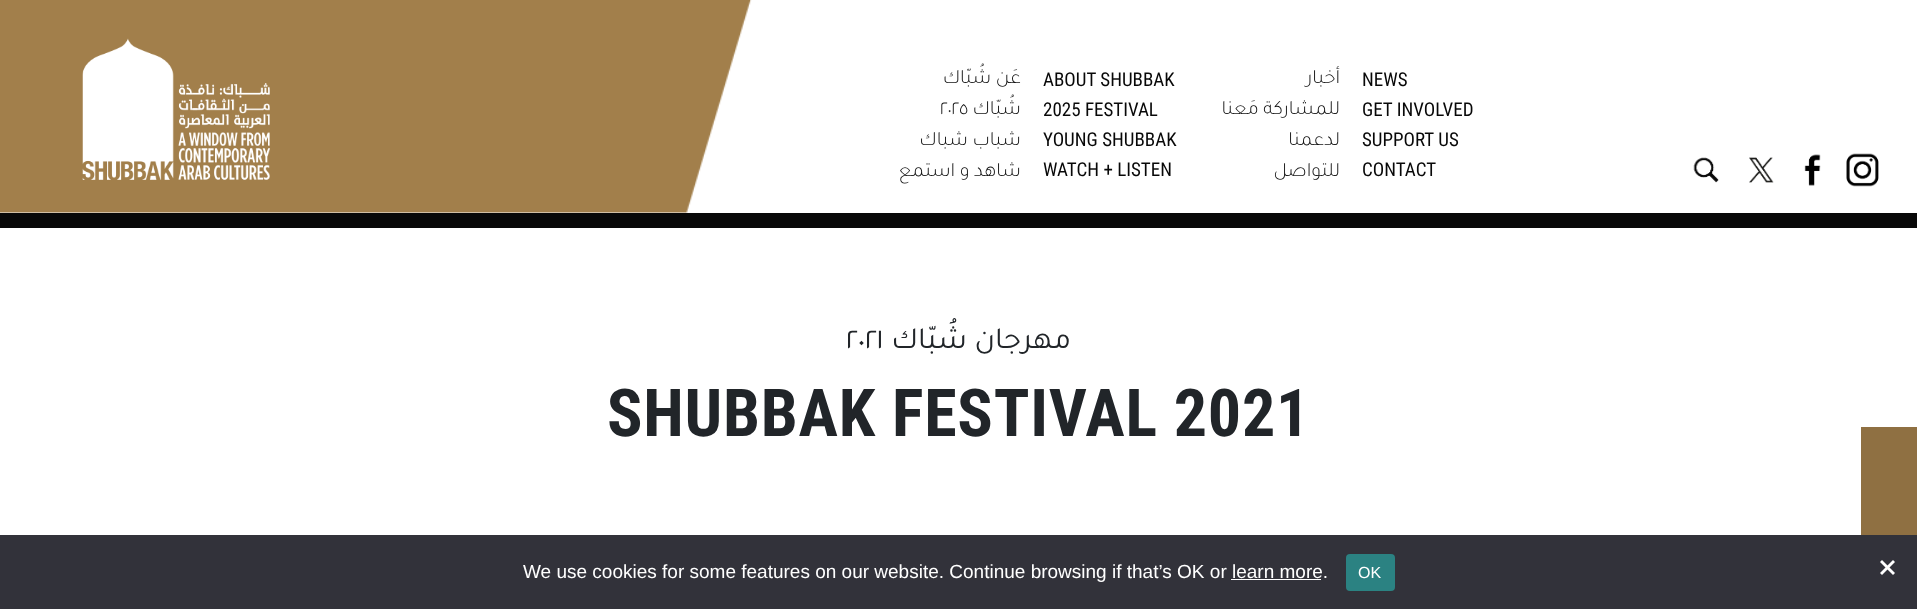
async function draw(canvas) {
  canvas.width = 1917
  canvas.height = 609
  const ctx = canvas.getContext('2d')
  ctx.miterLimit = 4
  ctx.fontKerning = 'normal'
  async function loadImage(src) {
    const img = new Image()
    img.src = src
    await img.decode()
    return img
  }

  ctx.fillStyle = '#fff'
  ctx.fillRect(0, 0, 1917, 609)
  ctx.drawImage(await loadImage('image0.png'), 0, 0, 752, 213)
  ctx.drawImage(await loadImage('image1.png'), 82, 38, 188, 142)
  ctx.direction = 'rtl'
  ctx.font = '300 20.25px Tajawal'
  ctx.fillStyle = '#111'
  ctx.fillText('عَن شُبّاك', 1021, 83)
  ctx.direction = 'ltr'
  ctx.fillText('٢٠٢٥', 940, 114)
  ctx.direction = 'rtl'
  ctx.fillText('شُبّاك', 1021, 114)
  ctx.fillText('شباب شباك', 1021, 145)
  ctx.fillText('شاهد و استمع', 1021, 176)
  ctx.direction = 'ltr'
  ctx.font = '19px Roboto Condensed'
  ctx.fillStyle = '#080808'
  ctx.fillText('ABOUT SHUBBAK', 1043, 86)
  ctx.fillText('2025 FESTIVAL', 1043, 116)
  ctx.fillText('YOUNG SHUBBAK', 1043, 146)
  ctx.fillText('WATCH + LISTEN', 1043, 176)
  ctx.direction = 'rtl'
  ctx.font = '300 20.25px Tajawal'
  ctx.fillStyle = '#111'
  ctx.fillText('أخبار', 1340, 83)
  ctx.fillText('للمشاركة مَعنا', 1340, 114)
  ctx.fillText('لدعمنا', 1340, 145)
  ctx.fillText('للتواصل', 1340, 176)
  ctx.direction = 'ltr'
  ctx.font = '19px Roboto Condensed'
  ctx.fillStyle = '#080808'
  ctx.fillText('NEWS', 1362, 86)
  ctx.fillText('GET INVOLVED', 1362, 116)
  ctx.fillText('SUPPORT US', 1362, 146)
  ctx.fillText('CONTACT', 1362, 176)
  ctx.drawImage(await loadImage('image2.png'), 1693, 157, 26, 26)
  ctx.drawImage(await loadImage('image3.png'), 1749, 157, 25, 26)
  ctx.drawImage(await loadImage('image4.png'), 1804, 154, 17, 32)
  ctx.drawImage(await loadImage('image5.png'), 1846, 153, 33, 34)
  ctx.fillRect(0, 213, 1917, 15)
  ctx.font = '30.75px Tajawal'
  ctx.fillStyle = '#212529'
  ctx.fillText('٢٠٢١', 846, 348)
  ctx.direction = 'rtl'
  ctx.fillText('مهرجان شُبّاك', 1071, 348)
  ctx.letterSpacing = '0.75px'
  ctx.direction = 'ltr'
  ctx.font = 'bold 66px Roboto Condensed'
  ctx.fillText('SHUBBAK FESTIVAL 2021', 607, 436)
  ctx.fillStyle = '#8f7042'
  ctx.fillRect(1861, 427, 56, 108)
  ctx.fillStyle = '#32323a'
  ctx.fillRect(0, 535, 1917, 74)
  ctx.letterSpacing = '0px'
  ctx.font = '19px Liberation Sans'
  ctx.fillStyle = '#fff'
  ctx.fillText('We use cookies for some features on our website. Continue browsing if that’s OK or learn more.', 523, 578)
  ctx.fillRect(1231, 579, 90, 1)
  ctx.fillStyle = '#2b8282'
  ctx.beginPath()
  ctx.roundRect(1346, 554, 49, 37, 4)
  ctx.fill()
  ctx.font = '16px Liberation Sans'
  ctx.fillStyle = '#fff'
  ctx.fillText('OK', 1358, 578)
  ctx.beginPath()
  ctx.moveTo(1893, 560)
  ctx.lineTo(1895, 562)
  ctx.lineTo(1882, 575)
  ctx.lineTo(1880, 573)
  ctx.closePath()
  ctx.fill()
  ctx.beginPath()
  ctx.moveTo(1880, 562)
  ctx.lineTo(1882, 560)
  ctx.lineTo(1895, 573)
  ctx.lineTo(1893, 575)
  ctx.closePath()
  ctx.fill()
}

draw(document.querySelector('canvas'))
